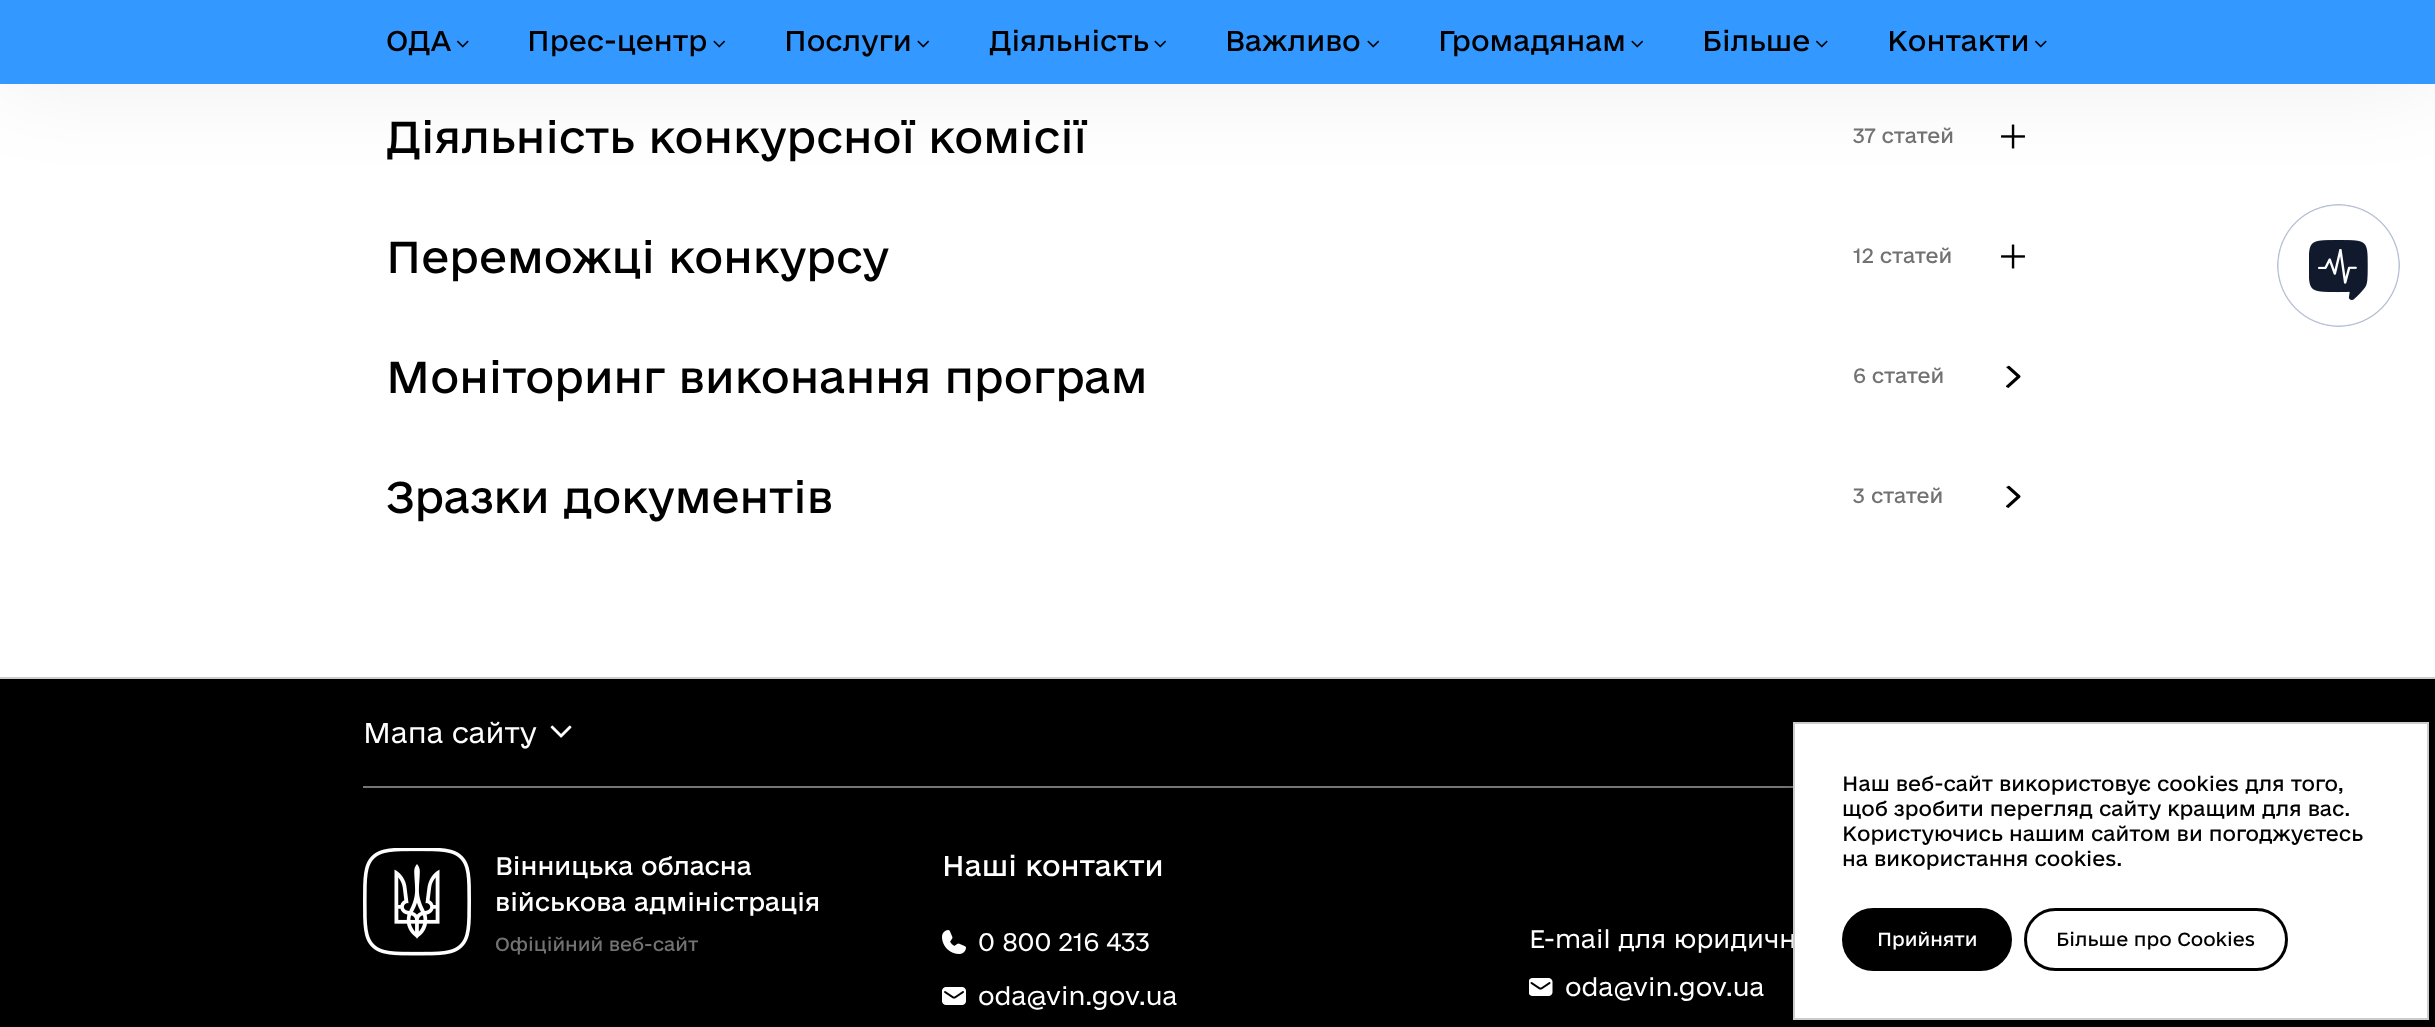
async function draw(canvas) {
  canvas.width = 2435
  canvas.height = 1027
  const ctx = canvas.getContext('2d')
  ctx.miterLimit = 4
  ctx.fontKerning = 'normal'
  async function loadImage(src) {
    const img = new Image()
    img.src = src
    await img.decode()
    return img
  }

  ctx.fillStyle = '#fff'
  ctx.fillRect(0, 0, 2435, 1027)
  ctx.drawImage(await loadImage('image2.png'), 2001, 124, 24, 25)
  ctx.fillStyle = '#00000012'
  ctx.filter = 'blur(45px)'
  ctx.beginPath()
  ctx.rect(0, 0, 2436, 84)
  ctx.fill()
  ctx.filter = 'none'
  ctx.fillStyle = '#3398ff'
  ctx.fillRect(0, 0, 2435, 84)
  ctx.font = '27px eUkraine'
  ctx.fillStyle = '#000'
  ctx.fillText('ОДА', 386, 51)
  ctx.drawImage(await loadImage('image0.png'), 456, 40, 13, 8)
  ctx.fillText('Прес-центр', 527, 51)
  ctx.drawImage(await loadImage('image1.png'), 713, 40, 13, 8)
  ctx.fillText('Послуги', 784, 51)
  ctx.drawImage(await loadImage('image1.png'), 917, 40, 13, 8)
  ctx.fillText('Діяльність', 989, 51)
  ctx.drawImage(await loadImage('image1.png'), 1154, 40, 13, 8)
  ctx.fillText('Важливо', 1225, 51)
  ctx.drawImage(await loadImage('image1.png'), 1367, 40, 13, 8)
  ctx.fillText('Громадянам', 1438, 51)
  ctx.drawImage(await loadImage('image1.png'), 1631, 40, 13, 8)
  ctx.fillText('Більше', 1702, 51)
  ctx.drawImage(await loadImage('image0.png'), 1815, 40, 13, 8)
  ctx.fillText('Контакти', 1887, 51)
  ctx.drawImage(await loadImage('image0.png'), 2034, 40, 13, 8)
  ctx.font = '42px eUkraine'
  ctx.fillText('Діяльність конкурсної комісії', 386, 153)
  ctx.font = '19.5px eUkraine'
  ctx.fillStyle = '#727272'
  ctx.fillText('37 статей', 1853, 143)
  ctx.font = '42px eUkraine'
  ctx.fillStyle = '#000'
  ctx.fillText('Переможці конкурсу', 386, 273)
  ctx.font = '19.5px eUkraine'
  ctx.fillStyle = '#727272'
  ctx.fillText('12 статей', 1853, 263)
  ctx.drawImage(await loadImage('image2.png'), 2001, 244, 24, 25)
  ctx.font = '42px eUkraine'
  ctx.fillStyle = '#000'
  ctx.fillText('Моніторинг виконання програм', 386, 393)
  ctx.font = '19.5px eUkraine'
  ctx.fillStyle = '#727272'
  ctx.fillText('6 статей', 1853, 383)
  ctx.drawImage(await loadImage('image3.png'), 2006, 365, 15, 23)
  ctx.font = '42px eUkraine'
  ctx.fillStyle = '#000'
  ctx.fillText('Зразки документів', 386, 513)
  ctx.font = '19.5px eUkraine'
  ctx.fillStyle = '#727272'
  ctx.fillText('3 статей', 1853, 503)
  ctx.drawImage(await loadImage('image3.png'), 2006, 485, 15, 23)
  ctx.fillStyle = '#000'
  ctx.fillRect(0, 679, 2435, 348)
  ctx.fillStyle = '#ccc'
  ctx.fillRect(0, 677, 2435, 2)
  ctx.fillStyle = '#757575'
  ctx.fillRect(363, 786, 1430, 2)
  ctx.font = '300 27px eUkraine'
  ctx.fillStyle = '#fff'
  ctx.fillText('Мапа сайту', 363, 743)
  ctx.drawImage(await loadImage('image4.png'), 550, 725, 22, 13)
  ctx.drawImage(await loadImage('image5.png'), 363, 848, 108, 108)
  ctx.font = '24px eUkraine'
  ctx.fillText('Вінницька обласна', 495, 875)
  ctx.fillText('військова адміністрація', 495, 911)
  ctx.font = '18px eUkraine'
  ctx.fillStyle = '#727272'
  ctx.fillText('Офіційний веб-сайт', 495, 951)
  ctx.font = '27px eUkraine'
  ctx.fillStyle = '#fff'
  ctx.fillText('Наші контакти', 942, 876)
  ctx.drawImage(await loadImage('image6.png'), 942, 930, 24, 24)
  ctx.font = '300 24px eUkraine'
  ctx.fillText('0 800 216 433', 978, 951)
  ctx.drawImage(await loadImage('image7.png'), 942, 987, 24, 18)
  ctx.fillText('oda@vin.gov.ua', 978, 1005)
  ctx.fillText('E-mail для юридичн', 1529, 948)
  ctx.drawImage(await loadImage('image8.png'), 1529, 978, 24, 18)
  ctx.fillText('oda@vin.gov.ua', 1565, 996)
  ctx.drawImage(await loadImage('image9.png'), 2277, 204, 123, 123)
  ctx.fillStyle = '#00000026'
  ctx.filter = 'blur(7.5px)'
  ctx.beginPath()
  ctx.rect(1793, 728, 636, 298)
  ctx.fill()
  ctx.filter = 'none'
  ctx.fillStyle = '#fff'
  ctx.beginPath()
  ctx.rect(1794, 723, 634, 296)
  ctx.fill()
  ctx.strokeStyle = '#ccc'
  ctx.lineWidth = 2
  ctx.stroke()
  ctx.font = '19.5px eUkraine'
  ctx.fillStyle = '#000'
  ctx.fillText('Наш веб-сайт використовує cookies для того,', 1842, 791)
  ctx.fillText('щоб зробити перегляд сайту кращим для вас.', 1842, 816)
  ctx.fillText('Користуючись нашим сайтом ви погоджуєтесь', 1842, 841)
  ctx.fillText('на використання cookies.', 1842, 866)
  ctx.beginPath()
  ctx.roundRect(1844.5, 910.5, 165, 58, 29)
  ctx.fill()
  ctx.strokeStyle = '#000'
  ctx.lineWidth = 5
  ctx.stroke()
  ctx.font = '18px eUkraine'
  ctx.fillStyle = '#fff'
  ctx.fillText('Прийняти', 1877, 946)
  ctx.beginPath()
  ctx.roundRect(2025.5, 909.5, 261, 60, 30)
  ctx.lineWidth = 3
  ctx.stroke()
  ctx.fillStyle = '#000'
  ctx.fillText('Більше про Cookies', 2056, 946)
}

draw(document.querySelector('canvas'))
